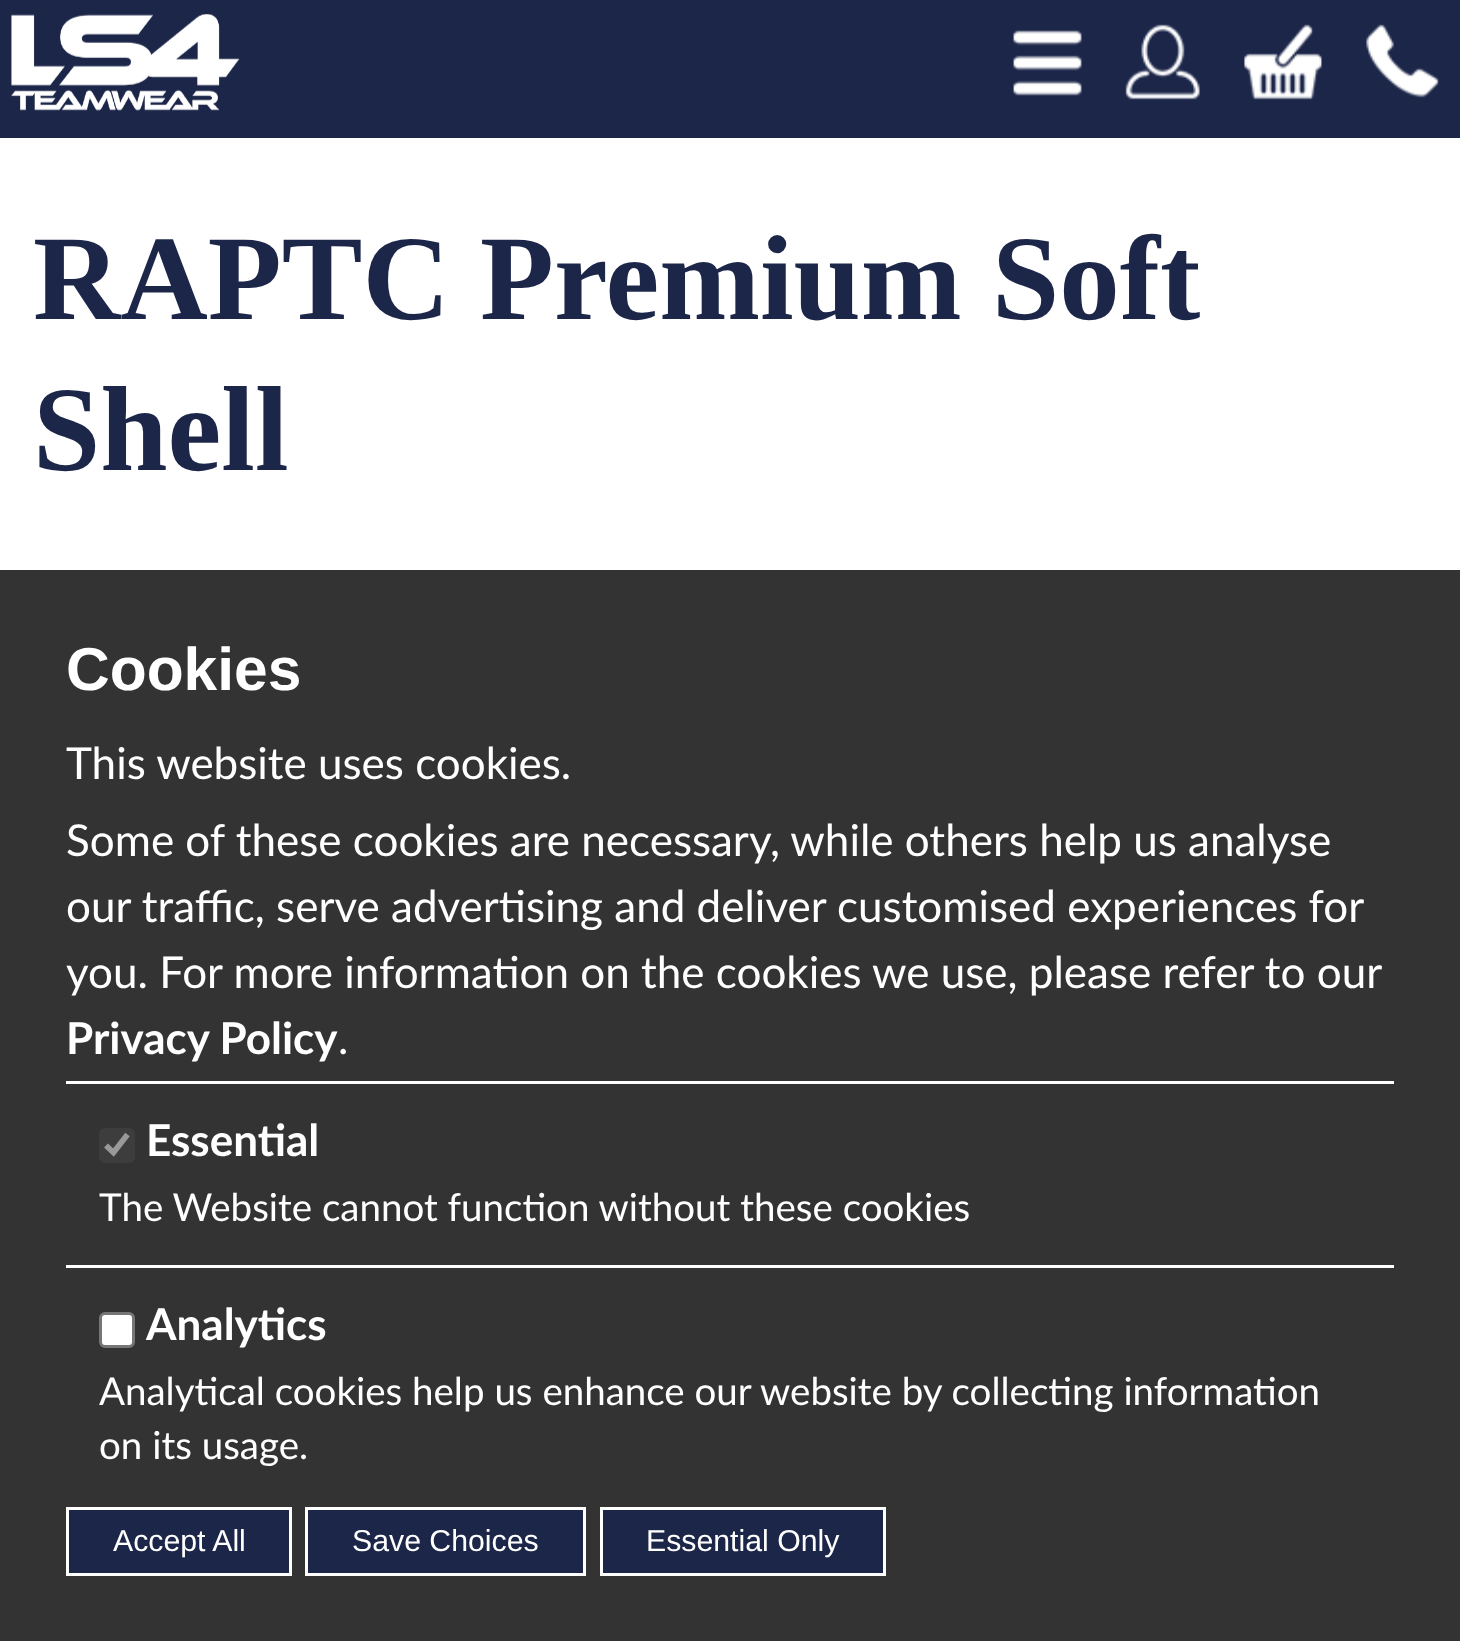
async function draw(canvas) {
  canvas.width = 1460
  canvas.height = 1641
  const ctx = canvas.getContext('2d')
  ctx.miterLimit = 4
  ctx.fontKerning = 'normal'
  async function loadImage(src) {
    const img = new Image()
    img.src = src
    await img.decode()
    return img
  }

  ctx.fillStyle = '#fff'
  ctx.fillRect(0, 0, 1460, 1641)
  ctx.fillStyle = '#1c2649'
  ctx.fillRect(0, 0, 1460, 138)
  ctx.drawImage(await loadImage('image0.png'), 11, 14, 229, 97)
  ctx.drawImage(await loadImage('image1.png'), 1013, 30, 69, 66)
  ctx.drawImage(await loadImage('image2.png'), 1125, 24, 75, 76)
  ctx.drawImage(await loadImage('image3.png'), 1244, 24, 78, 76)
  ctx.drawImage(await loadImage('image4.png'), 1366, 24, 73, 74)
  ctx.font = 'bold 121px Liberation Serif'
  ctx.fillText('RAPTC Premium Soft', 33, 319)
  ctx.fillText('Shell', 33, 470)
  ctx.fillStyle = '#333'
  ctx.fillRect(0, 570, 1460, 1071)
  ctx.font = 'bold 60.5px Liberation Sans'
  ctx.fillStyle = '#fff'
  ctx.fillText('Cookies', 66, 690)
  ctx.font = '44px Lato'
  ctx.fillText('This website uses cookies.', 66, 779)
  ctx.fillText('Some of these cookies are necessary, while others help us analyse', 66, 856)
  ctx.fillText('our traffic, serve advertising and deliver customised experiences for', 66, 922)
  ctx.fillText('you. For more information on the cookies we use, please refer to our', 66, 988)
  ctx.font = 'bold 44px Lato'
  ctx.fillText('Privacy Policy', 66, 1054)
  ctx.font = '44px Lato'
  ctx.fillText('.', 338, 1054)
  ctx.fillRect(66, 1081, 1328, 3)
  ctx.fillStyle = '#3d3d3d'
  ctx.beginPath()
  ctx.roundRect(99, 1128, 36, 35, 6)
  ctx.fill()
  ctx.beginPath()
  ctx.moveTo(106, 1145.5)
  ctx.lineTo(113.5, 1152.5)
  ctx.lineTo(127.5, 1134.5)
  ctx.strokeStyle = '#999'
  ctx.lineWidth = 5.7
  ctx.stroke()
  ctx.font = 'bold 44px Lato'
  ctx.fillStyle = '#fff'
  ctx.fillText('Essential', 146, 1156)
  ctx.font = '38.5px Lato'
  ctx.fillText('The Website cannot function without these cookies', 99, 1221)
  ctx.fillRect(66, 1265, 1328, 3)
  ctx.beginPath()
  ctx.roundRect(100.5, 1313.5, 33, 33, 4.5)
  ctx.fill()
  ctx.strokeStyle = '#767676'
  ctx.lineWidth = 3
  ctx.stroke()
  ctx.font = 'bold 44px Lato'
  ctx.fillText('Analytics', 146, 1340)
  ctx.font = '38.5px Lato'
  ctx.fillText('Analytical cookies help us enhance our website by collecting information', 99, 1405)
  ctx.fillText('on its usage.', 99, 1459)
  ctx.fillStyle = '#1c2649'
  ctx.beginPath()
  ctx.rect(67.5, 1508.5, 223, 66)
  ctx.fill()
  ctx.strokeStyle = '#fff'
  ctx.stroke()
  ctx.font = '30.25px Liberation Sans'
  ctx.fillStyle = '#fff'
  ctx.fillText('Accept All', 113, 1551)
  ctx.fillStyle = '#1c2649'
  ctx.beginPath()
  ctx.rect(306.5, 1508.5, 278, 66)
  ctx.fill()
  ctx.stroke()
  ctx.fillStyle = '#fff'
  ctx.fillText('Save Choices', 352, 1551)
  ctx.fillStyle = '#1c2649'
  ctx.beginPath()
  ctx.rect(601.5, 1508.5, 283, 66)
  ctx.fill()
  ctx.stroke()
  ctx.fillStyle = '#fff'
  ctx.fillText('Essential Only', 646, 1551)
}

draw(document.querySelector('canvas'))
